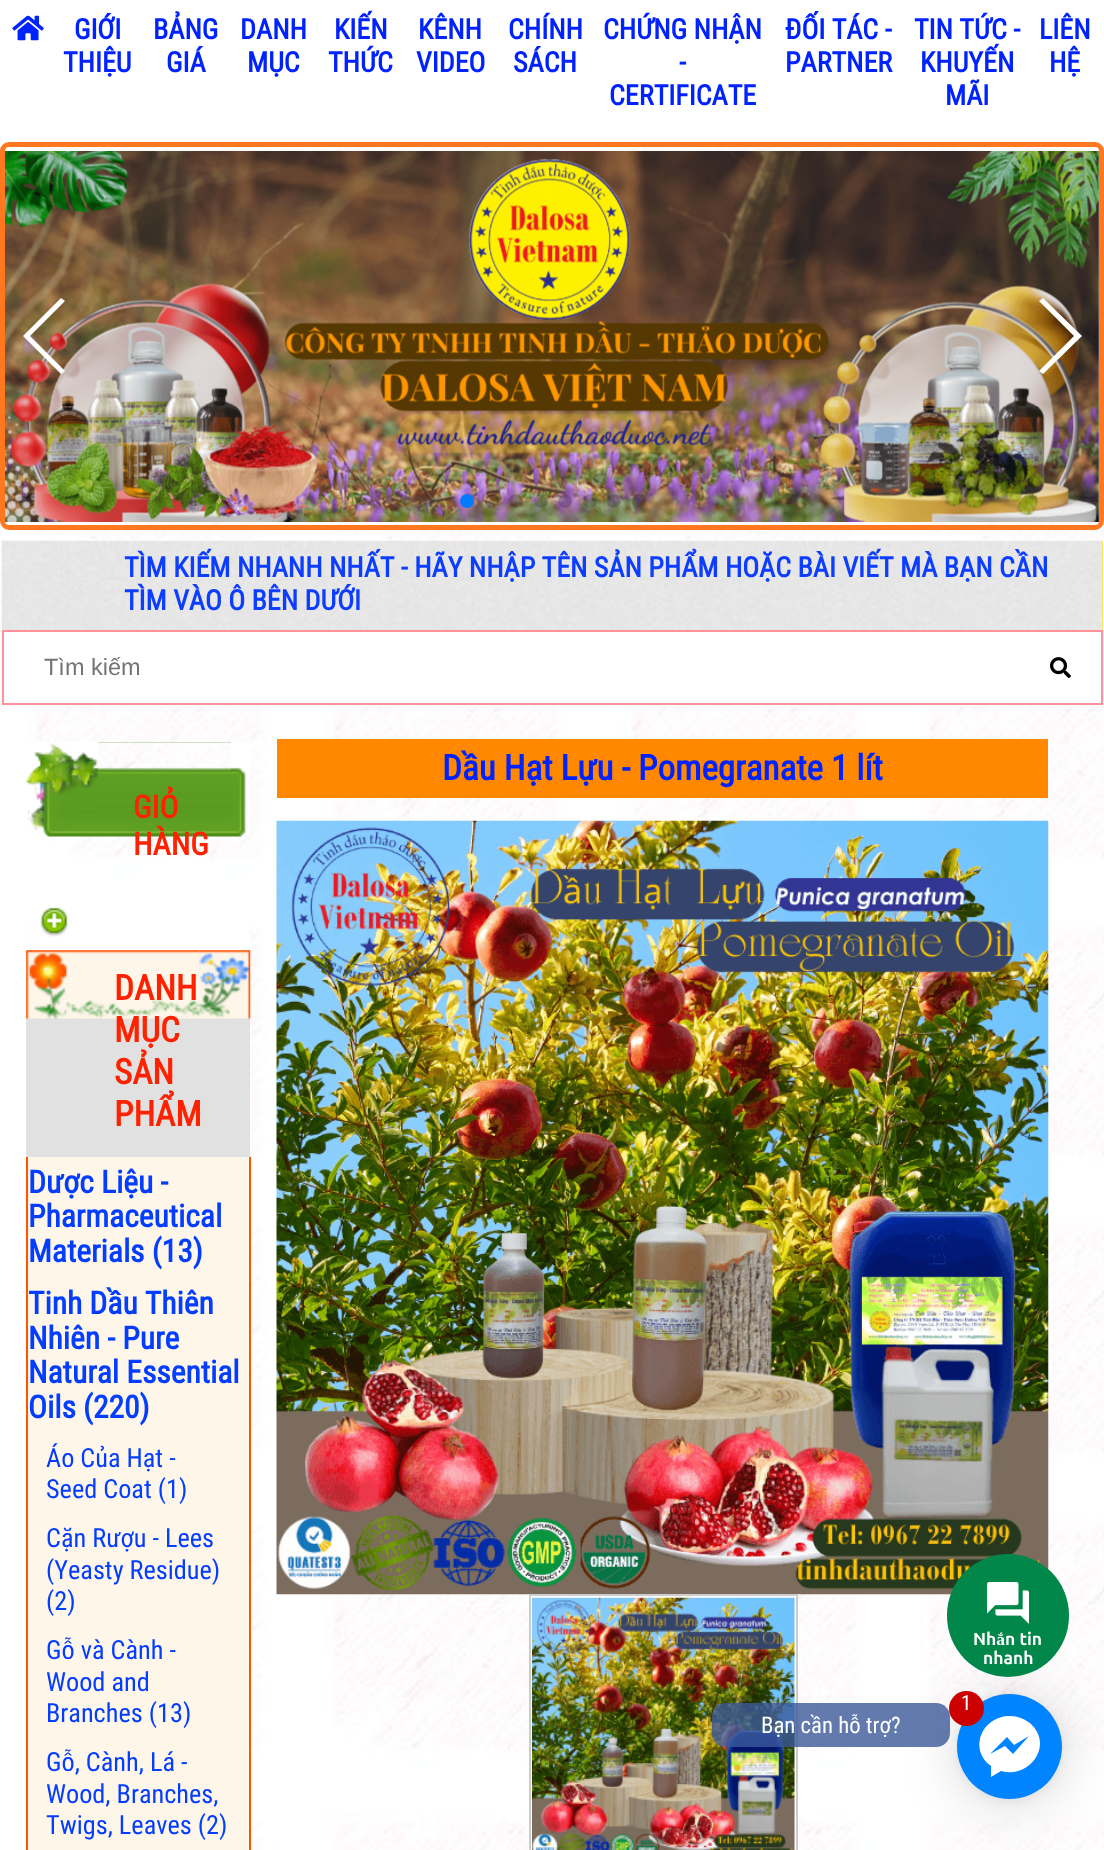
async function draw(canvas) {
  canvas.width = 1104
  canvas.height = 1850
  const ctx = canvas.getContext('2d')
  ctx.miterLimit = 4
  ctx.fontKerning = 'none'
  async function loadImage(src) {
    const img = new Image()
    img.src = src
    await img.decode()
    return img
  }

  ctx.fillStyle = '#fff'
  ctx.fillRect(0, 0, 1104, 1850)
  ctx.drawImage(await loadImage('image0.png'), 29, 138, 1075, 1712)
  ctx.beginPath()
  ctx.roundRect(0, 0, 1104, 142, 4)
  ctx.fill()
  ctx.drawImage(await loadImage('image1.png'), 12, 15, 32, 26)
  ctx.font = 'bold 28px Roboto Condensed'
  ctx.fillStyle = '#02f'
  ctx.fillText('GIỚI', 74, 39)
  ctx.fillText('THIỆU', 63, 72)
  ctx.fillText('BẢNG', 153, 39)
  ctx.fillText('GIÁ', 166, 72)
  ctx.fillText('DANH', 240, 39)
  ctx.fillText('MỤC', 247, 72)
  ctx.fillText('KIẾN', 334, 39)
  ctx.fillText('THỨC', 328, 72)
  ctx.fillText('KÊNH', 418, 39)
  ctx.fillText('VIDEO', 416, 72)
  ctx.fillText('CHÍNH', 508, 39)
  ctx.fillText('SÁCH', 513, 72)
  ctx.fillText('CHỨNG NHẬN', 603, 39)
  ctx.fillText('-', 679, 72)
  ctx.fillText('CERTIFICATE', 609, 105)
  ctx.fillText('ĐỐI TÁC -', 785, 39)
  ctx.fillText('PARTNER', 785, 72)
  ctx.fillText('TIN TỨC -', 914, 39)
  ctx.fillText('KHUYẾN', 920, 72)
  ctx.fillText('MÃI', 945, 105)
  ctx.fillText('LIÊN', 1039, 39)
  ctx.fillText('HỆ', 1049, 72)
  ctx.beginPath()
  ctx.roundRect(2.5, 144.5, 1099, 383, 6.5)
  ctx.strokeStyle = '#ff781f'
  ctx.lineWidth = 5
  ctx.stroke()
  ctx.drawImage(await loadImage('image2.png'), 5, 151, 1094, 371)
  ctx.fillStyle = '#fff'
  ctx.beginPath()
  ctx.moveTo(23, 336)
  ctx.lineTo(61, 298)
  ctx.lineTo(65, 301)
  ctx.lineTo(30, 336)
  ctx.lineTo(65, 371)
  ctx.lineTo(61, 374)
  ctx.closePath()
  ctx.fill()
  ctx.beginPath()
  ctx.moveTo(1082, 336)
  ctx.lineTo(1043, 374)
  ctx.lineTo(1039, 371)
  ctx.lineTo(1074, 336)
  ctx.lineTo(1039, 301)
  ctx.lineTo(1043, 298)
  ctx.closePath()
  ctx.fill()
  ctx.fillStyle = '#007aff'
  ctx.beginPath()
  ctx.arc(467, 501, 7, 0, 2 * Math.PI)
  ctx.fill()
  ctx.fillStyle = '#00000033'
  ctx.beginPath()
  ctx.arc(492, 501, 7, 0, 2 * Math.PI)
  ctx.fill()
  ctx.beginPath()
  ctx.arc(516, 501, 7, 0, 2 * Math.PI)
  ctx.fill()
  ctx.beginPath()
  ctx.arc(541, 501, 7, 0, 2 * Math.PI)
  ctx.fill()
  ctx.beginPath()
  ctx.arc(565, 501, 7, 0, 2 * Math.PI)
  ctx.fill()
  ctx.beginPath()
  ctx.arc(590, 501, 7, 0, 2 * Math.PI)
  ctx.fill()
  ctx.beginPath()
  ctx.arc(614, 501, 7, 0, 2 * Math.PI)
  ctx.fill()
  ctx.beginPath()
  ctx.arc(639, 501, 7, 0, 2 * Math.PI)
  ctx.fill()
  ctx.strokeStyle = '#fffdfc'
  ctx.lineWidth = 2
  ctx.strokeRect(1, 540, 1102, 166)
  ctx.fillStyle = '#ffe600'
  ctx.fillRect(1102, 541, 1, 89)
  ctx.drawImage(await loadImage('image3.png'), 1, 540, 1102, 90)
  ctx.fillStyle = '#0d3dff'
  ctx.fillText('TÌM KIẾM NHANH NHẤT - HÃY NHẬP TÊN SẢN PHẨM HOẶC BÀI VIẾT MÀ BẠN CẦN', 124, 577)
  ctx.fillText('TÌM VÀO Ô BÊN DƯỚI', 124, 610)
  ctx.fillStyle = '#fff'
  ctx.fillRect(29, 632, 1072, 71)
  ctx.strokeStyle = '#ff9298'
  ctx.strokeRect(3, 631, 1099, 73)
  ctx.font = '23.5px Liberation Sans'
  ctx.fillStyle = '#757575'
  ctx.fillText('Tìm kiếm', 44, 675)
  ctx.drawImage(await loadImage('image4.png'), 1050, 657, 21, 22)
  ctx.fillStyle = '#f80'
  ctx.fillRect(277, 739, 771, 59)
  ctx.font = 'bold 35px Roboto Condensed'
  ctx.fillStyle = '#02f'
  ctx.fillText('Dầu Hạt Lựu - Pomegranate 1 lít', 442, 780)
  ctx.drawImage(await loadImage('image5.png'), 276, 820, 773, 775)
  ctx.strokeStyle = '#ccc'
  ctx.strokeRect(530, 1595, 267, 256)
  ctx.drawImage(await loadImage('image6.png'), 532, 1597, 263, 253)
  ctx.drawImage(await loadImage('image7.png'), 26, 742, 224, 95)
  ctx.font = 'bold 31.5px Roboto Condensed'
  ctx.fillStyle = '#f20'
  ctx.fillText('GIỎ', 133, 818)
  ctx.fillText('HÀNG', 133, 855)
  ctx.fillStyle = '#fff'
  ctx.fillRect(38, 921, 212, 29)
  ctx.drawImage(await loadImage('image8.png'), 40, 907, 29, 30)
  ctx.fillStyle = '#e1e1e1'
  ctx.fillRect(26, 950, 224, 207)
  ctx.drawImage(await loadImage('image9.png'), 26, 950, 225, 70)
  ctx.font = 'bold 35px Roboto Condensed'
  ctx.fillStyle = '#f20'
  ctx.fillText('DANH', 114, 1000)
  ctx.fillText('MỤC', 114, 1042)
  ctx.fillText('SẢN', 114, 1084)
  ctx.fillText('PHẨM', 114, 1126)
  ctx.fillStyle = '#fff6ea'
  ctx.fillRect(28, 1157, 221, 693)
  ctx.fillStyle = '#f50'
  ctx.fillRect(249, 1157, 2, 693)
  ctx.fillRect(26, 1157, 2, 693)
  ctx.font = 'bold 31.5px Roboto Condensed'
  ctx.fillStyle = '#033dff'
  ctx.fillText('Dược Liệu -', 28, 1193)
  ctx.fillText('Pharmaceutical', 28, 1227)
  ctx.fillText('Materials (13)', 28, 1262)
  ctx.fillText('Tinh Dầu Thiên', 28, 1314)
  ctx.fillText('Nhiên - Pure', 28, 1349)
  ctx.fillText('Natural Essential', 28, 1383)
  ctx.fillText('Oils (220)', 28, 1418)
  ctx.font = '26.25px Roboto Condensed'
  ctx.fillText('Áo Của Hạt -', 46, 1467)
  ctx.fillText('Seed Coat (1)', 46, 1498)
  ctx.fillText('Cặn Rượu - Lees', 46, 1547)
  ctx.fillText('(Yeasty Residue)', 46, 1579)
  ctx.fillText('(2)', 46, 1610)
  ctx.fillText('Gỗ và Cành -', 46, 1659)
  ctx.fillText('Wood and', 46, 1691)
  ctx.fillText('Branches (13)', 46, 1722)
  ctx.fillText('Gỗ, Cành, Lá -', 46, 1771)
  ctx.fillText('Wood, Branches,', 46, 1803)
  ctx.fillText('Twigs, Leaves (2)', 46, 1834)
  ctx.fillStyle = '#00000029'
  ctx.filter = 'blur(28px)'
  ctx.beginPath()
  ctx.roundRect(957, 1698, 105, 105, 52.5)
  ctx.fill()
  ctx.filter = 'none'
  ctx.fillStyle = '#008749'
  ctx.beginPath()
  ctx.roundRect(947, 1554, 122, 123, 61)
  ctx.fill()
  ctx.drawImage(await loadImage('image10.png'), 987, 1582, 42, 42)
  ctx.font = 'bold 17.5px Ubuntu'
  ctx.fillStyle = '#fff'
  ctx.fillText('Nhắn tin', 973, 1645)
  ctx.fillText('nhanh', 983, 1664)
  ctx.fillStyle = '#0000000f'
  ctx.filter = 'blur(5px)'
  ctx.beginPath()
  ctx.roundRect(957, 1696, 105, 105, 52.5)
  ctx.fill()
  ctx.filter = 'none'
  ctx.fillStyle = '#0084ff'
  ctx.beginPath()
  ctx.arc(1009.5, 1746.5, 52.5, 0, 2 * Math.PI)
  ctx.fill()
  ctx.save()
  ctx.beginPath()
  ctx.roundRect(957, 1694, 105, 105, 52.5)
  ctx.clip()
  ctx.fillRect(968, 1705, 84, 84)
  ctx.restore()
  ctx.fillStyle = '#fff'
  ctx.beginPath()
  ctx.moveTo(1010, 1716)
  ctx.bezierCurveTo(982, 1716, 968, 1749, 991, 1766)
  ctx.lineTo(991, 1777)
  ctx.lineTo(1001, 1771)
  ctx.bezierCurveTo(1029, 1779, 1054, 1746, 1031, 1724)
  ctx.bezierCurveTo(1025, 1719, 1018, 1716, 1010, 1716)
  ctx.closePath()
  ctx.moveTo(1013, 1754)
  ctx.lineTo(1005, 1746)
  ctx.lineTo(990, 1754)
  ctx.lineTo(1007, 1737)
  ctx.lineTo(1014, 1745)
  ctx.lineTo(1029, 1736)
  ctx.closePath()
  ctx.fill()
  ctx.fillStyle = '#3b5998cc'
  ctx.beginPath()
  ctx.roundRect(712, 1703, 238, 44, 14)
  ctx.fill()
  ctx.fillStyle = '#c00'
  ctx.beginPath()
  ctx.arc(966.5, 1708.5, 17.5, 0, 2 * Math.PI)
  ctx.fill()
  ctx.font = '21px Roboto Condensed'
  ctx.fillStyle = '#fff'
  ctx.fillText('1', 961, 1710)
  ctx.font = '22.75px Roboto Condensed'
  ctx.fillText('Bạn cần hỗ trợ?', 761, 1733)
}

draw(document.querySelector('canvas'))
